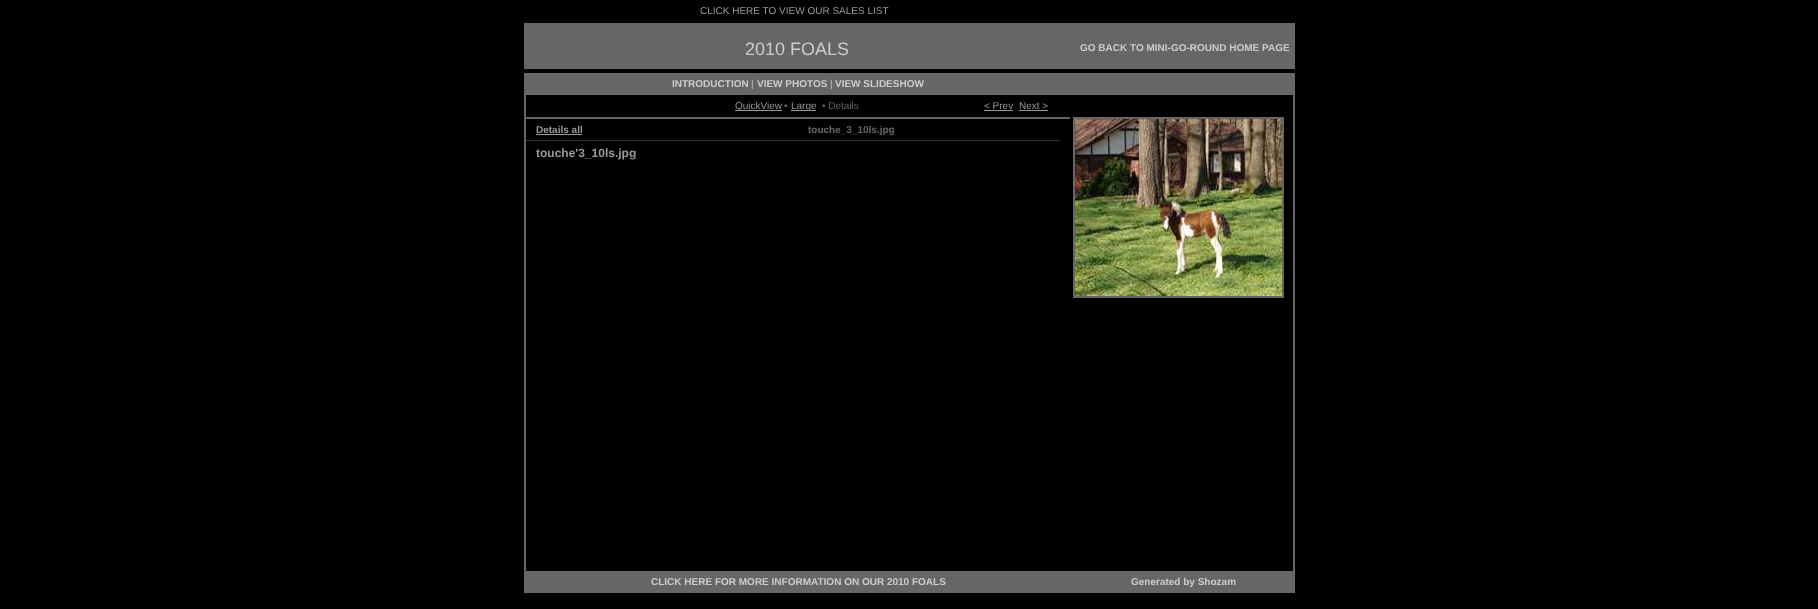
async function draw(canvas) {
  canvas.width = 1818
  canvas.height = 609
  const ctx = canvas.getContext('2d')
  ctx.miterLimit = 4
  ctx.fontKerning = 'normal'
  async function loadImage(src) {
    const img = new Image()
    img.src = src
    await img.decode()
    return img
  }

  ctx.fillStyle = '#000'
  ctx.fillRect(0, 0, 1818, 609)
  ctx.font = '10px Liberation Sans'
  ctx.fillStyle = '#999'
  ctx.fillText('CLICK HERE TO VIEW OUR SALES LIST', 700, 14)
  ctx.fillStyle = '#666'
  ctx.fillRect(524, 23, 771, 46)
  ctx.font = '18px Liberation Sans'
  ctx.fillStyle = '#ccc'
  ctx.fillText('2010 FOALS', 745, 55)
  ctx.font = 'bold 10px Liberation Sans'
  ctx.fillText('GO BACK TO MINI-GO-ROUND HOME PAGE', 1080, 51)
  ctx.fillStyle = '#666'
  ctx.fillRect(1293, 73, 2, 520)
  ctx.fillRect(524, 73, 2, 520)
  ctx.fillRect(526, 73, 767, 22)
  ctx.fillStyle = '#ccc'
  ctx.fillText('INTRODUCTION', 672, 87)
  ctx.fillStyle = '#a8a8a8'
  ctx.fillText('|', 751, 87)
  ctx.fillStyle = '#ccc'
  ctx.fillText('VIEW PHOTOS', 757, 87)
  ctx.fillStyle = '#a8a8a8'
  ctx.fillText('|', 830, 87)
  ctx.fillStyle = '#ccc'
  ctx.fillText('VIEW SLIDESHOW', 835, 87)
  ctx.fillStyle = '#999'
  ctx.fillRect(735, 110, 47, 1)
  ctx.font = '10px Liberation Sans'
  ctx.fillText('QuickView', 735, 109)
  ctx.fillStyle = '#666'
  ctx.fillText('•', 784, 109)
  ctx.fillStyle = '#999'
  ctx.fillRect(791, 110, 25, 1)
  ctx.fillText('Large', 791, 109)
  ctx.fillStyle = '#666'
  ctx.fillText('• Details', 822, 109)
  ctx.fillStyle = '#999'
  ctx.fillText('< Prev', 984, 109)
  ctx.fillRect(984, 110, 29, 1)
  ctx.fillText('Next >', 1019, 109)
  ctx.fillRect(1019, 110, 29, 1)
  ctx.fillStyle = '#666'
  ctx.fillRect(526, 117, 544, 2)
  ctx.font = 'bold 10px Liberation Sans'
  ctx.fillStyle = '#999'
  ctx.fillText('Details all', 536, 133)
  ctx.fillRect(536, 134, 46, 1)
  ctx.fillStyle = '#666'
  ctx.fillText('touche_3_10ls.jpg', 808, 133)
  ctx.fillStyle = '#333'
  ctx.fillRect(526, 140, 534, 1)
  ctx.font = 'bold 12px Liberation Sans'
  ctx.fillStyle = '#999'
  ctx.fillText('touche\'3_10ls.jpg', 536, 157)
  ctx.strokeStyle = '#666'
  ctx.lineWidth = 2
  ctx.strokeRect(1074, 118, 209, 179)
  ctx.drawImage(await loadImage('image0.png'), 1075, 119, 207, 177)
  ctx.fillStyle = '#666'
  ctx.fillRect(526, 571, 767, 22)
  ctx.font = 'bold 10px Liberation Sans'
  ctx.fillStyle = '#ccc'
  ctx.fillText('CLICK HERE FOR MORE INFORMATION ON OUR 2010 FOALS', 651, 585)
  ctx.fillText('Generated by Shozam', 1131, 585)
}

draw(document.querySelector('canvas'))
